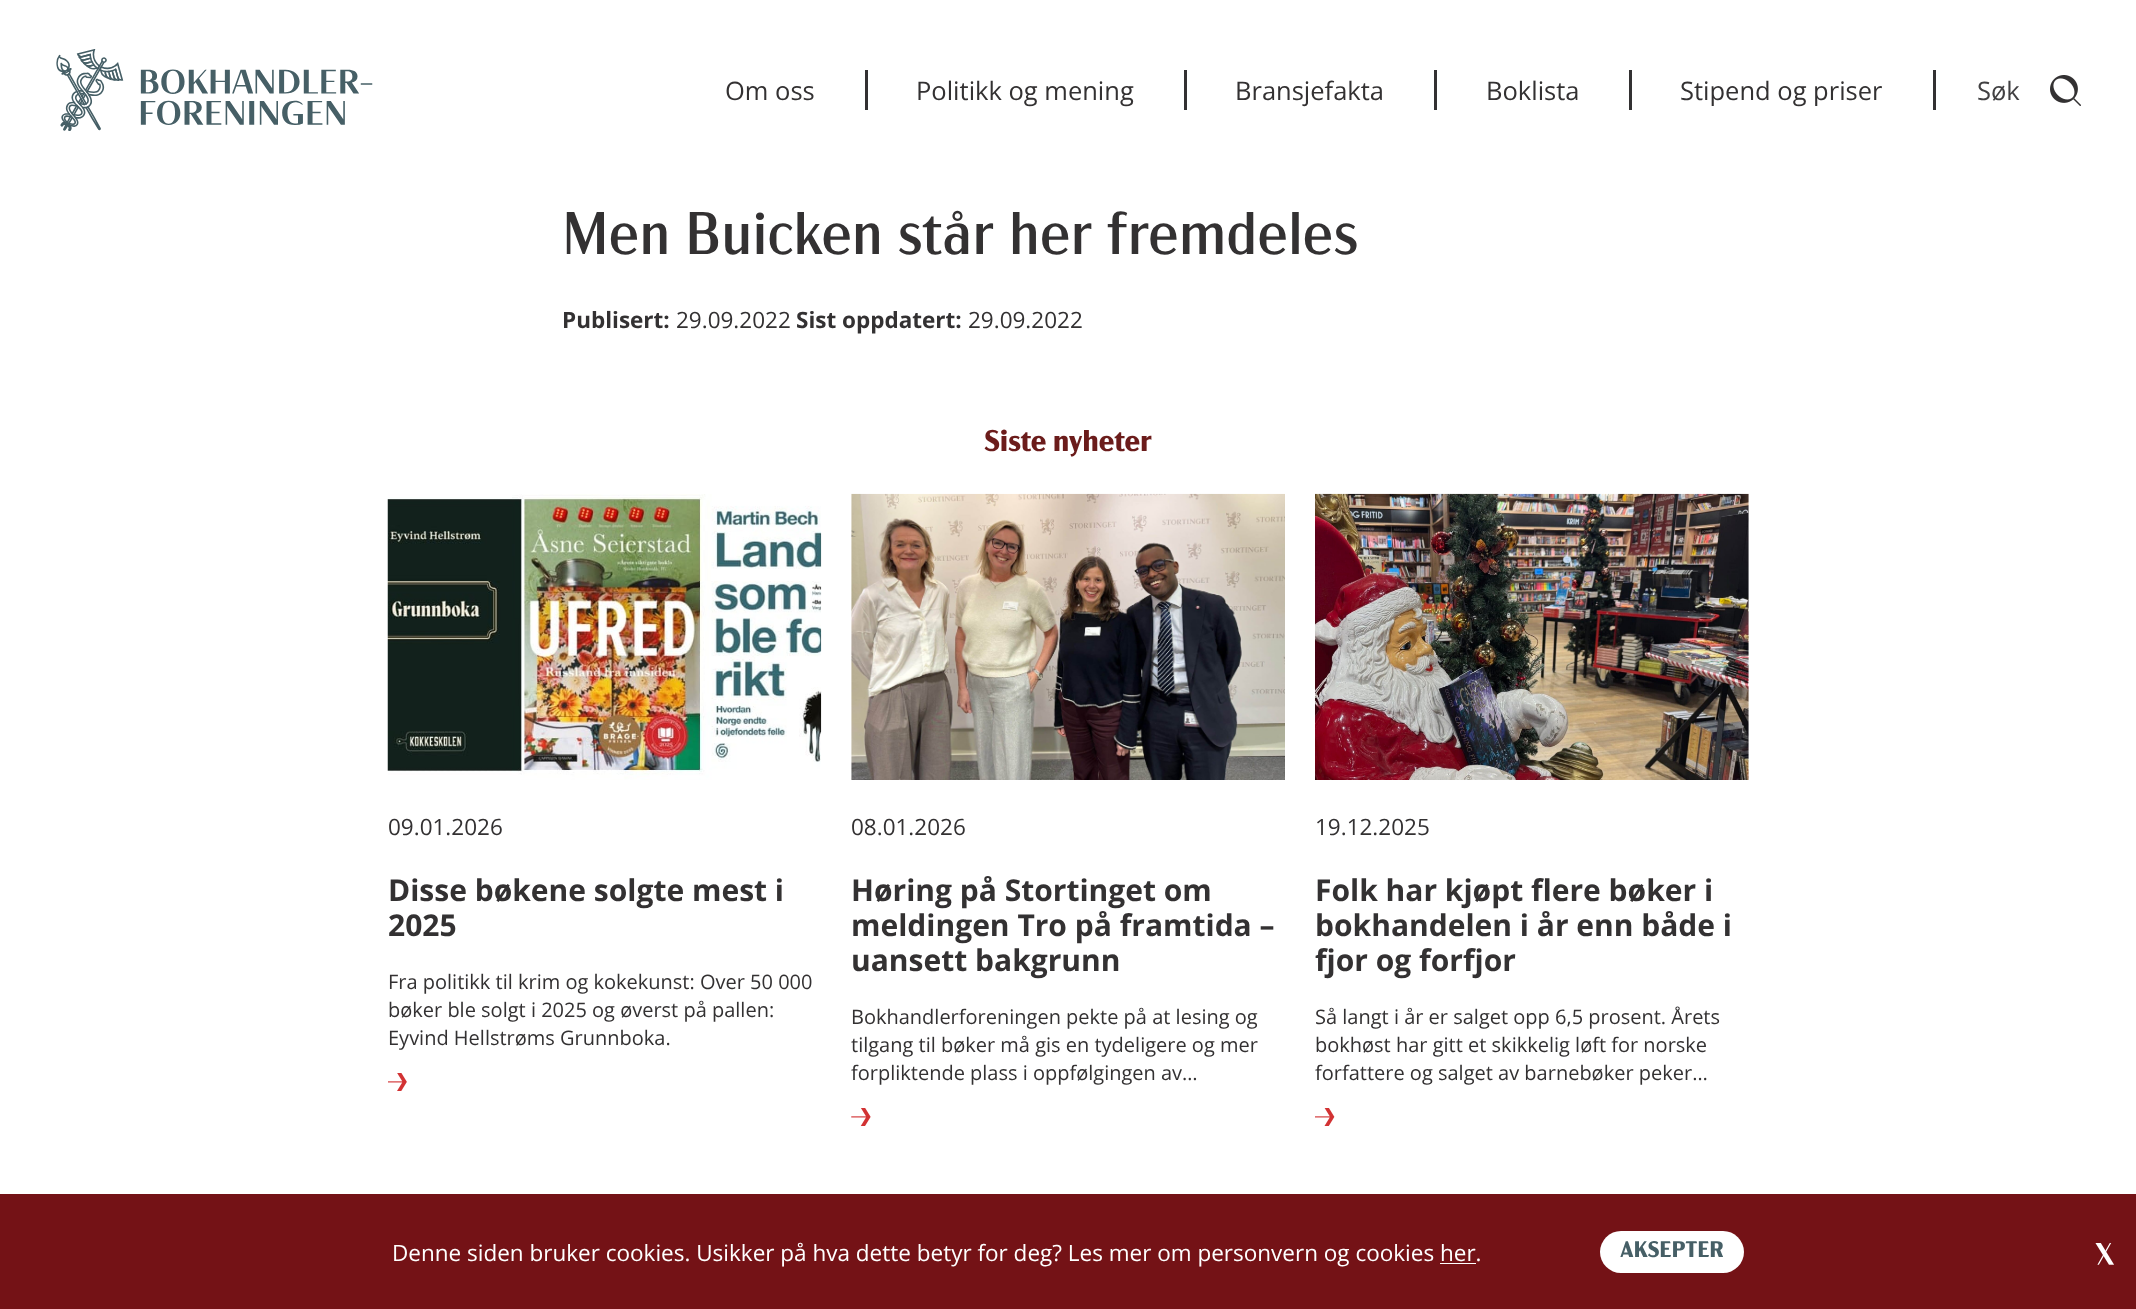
async function draw(canvas) {
  canvas.width = 2136
  canvas.height = 1309
  const ctx = canvas.getContext('2d')
  ctx.miterLimit = 4
  ctx.fontKerning = 'normal'
  async function loadImage(src) {
    const img = new Image()
    img.src = src
    await img.decode()
    return img
  }

  ctx.fillStyle = '#fff'
  ctx.fillRect(0, 0, 2136, 1309)
  ctx.drawImage(await loadImage('image0.png'), 56, 49, 317, 82)
  ctx.font = '25.5px Open Sans'
  ctx.fillStyle = '#333132'
  ctx.fillText('Om oss', 725, 100)
  ctx.fillRect(865, 70, 3, 40)
  ctx.fillText('Politikk og mening', 916, 100)
  ctx.fillRect(1184, 70, 3, 40)
  ctx.fillText('Bransjefakta', 1235, 100)
  ctx.fillRect(1434, 70, 3, 40)
  ctx.fillText('Boklista', 1486, 100)
  ctx.fillRect(1629, 70, 3, 40)
  ctx.fillText('Stipend og priser', 1680, 100)
  ctx.fillRect(1933, 70, 3, 40)
  ctx.fillStyle = '#414042'
  ctx.fillText('Søk', 1977, 100)
  ctx.drawImage(await loadImage('image1.png'), 2050, 75, 31, 31)
  ctx.font = '60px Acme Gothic'
  ctx.fillStyle = '#333132'
  ctx.fillText('Men Buicken står her fremdeles', 562, 254)
  ctx.font = 'bold 22.5px Open Sans'
  ctx.fillText('Publisert:', 562, 328)
  ctx.font = '22.5px Open Sans'
  ctx.fillText('29.09.2022', 676, 328)
  ctx.font = 'bold 22.5px Open Sans'
  ctx.fillText('Sist oppdatert:', 796, 328)
  ctx.font = '22.5px Open Sans'
  ctx.fillText('29.09.2022', 968, 328)
  ctx.font = 'bold 30px Acme Gothic'
  ctx.fillStyle = '#6b1c1b'
  ctx.fillText('Siste nyheter', 984, 451)
  ctx.drawImage(await loadImage('image2.png'), 387, 494, 435, 286)
  ctx.font = '22.5px Open Sans'
  ctx.fillStyle = '#333132'
  ctx.fillText('09.01.2026', 388, 835)
  ctx.font = 'bold 30px Open Sans'
  ctx.fillText('Disse bøkene solgte mest i', 388, 901)
  ctx.fillText('2025', 388, 936)
  ctx.font = '20px Open Sans'
  ctx.fillText('Fra politikk til krim og kokekunst: Over 50 000', 388, 989)
  ctx.fillText('bøker ble solgt i 2025 og øverst på pallen:', 388, 1017)
  ctx.fillText('Eyvind Hellstrøms Grunnboka.', 388, 1045)
  ctx.drawImage(await loadImage('image3.png'), 388, 1073, 19, 18)
  ctx.drawImage(await loadImage('image4.png'), 851, 493, 434, 287)
  ctx.font = '22.5px Open Sans'
  ctx.fillText('08.01.2026', 851, 835)
  ctx.font = 'bold 30px Open Sans'
  ctx.fillText('Høring på Stortinget om', 851, 901)
  ctx.fillText('meldingen Tro på framtida –', 851, 936)
  ctx.fillText('uansett bakgrunn', 851, 971)
  ctx.font = '20px Open Sans'
  ctx.fillText('Bokhandlerforeningen pekte på at lesing og', 851, 1024)
  ctx.fillText('tilgang til bøker må gis en tydeligere og mer', 851, 1052)
  ctx.fillText('forpliktende plass i oppfølgingen av…', 851, 1080)
  ctx.drawImage(await loadImage('image5.png'), 851, 1108, 20, 18)
  ctx.drawImage(await loadImage('image6.png'), 1315, 493, 434, 287)
  ctx.font = '22.5px Open Sans'
  ctx.fillText('19.12.2025', 1315, 835)
  ctx.font = 'bold 30px Open Sans'
  ctx.fillText('Folk har kjøpt flere bøker i', 1315, 901)
  ctx.fillText('bokhandelen i år enn både i', 1315, 936)
  ctx.fillText('fjor og forfjor', 1315, 971)
  ctx.font = '20px Open Sans'
  ctx.fillText('Så langt i år er salget opp 6,5 prosent. Årets', 1315, 1024)
  ctx.fillText('bokhøst har gitt et skikkelig løft for norske', 1315, 1052)
  ctx.fillText('forfattere og salget av barnebøker peker…', 1315, 1080)
  ctx.drawImage(await loadImage('image7.png'), 1315, 1108, 20, 18)
  ctx.fillStyle = '#741216'
  ctx.fillRect(0, 1194, 2136, 115)
  ctx.font = '22.5px Open Sans'
  ctx.fillStyle = '#fff'
  ctx.fillText('Denne siden bruker cookies. Usikker på hva dette betyr for deg? Les mer om personvern og cookies her.', 392, 1261)
  ctx.fillRect(1440, 1263, 36, 1)
  ctx.beginPath()
  ctx.roundRect(1600, 1231, 144, 42, 21)
  ctx.fill()
  ctx.font = 'bold 22.5px Acme Gothic'
  ctx.fillStyle = '#465f66'
  ctx.fillText('AKSEPTER', 1620, 1257)
  ctx.drawImage(await loadImage('image8.png'), 2095, 1243, 19, 22)
}

draw(document.querySelector('canvas'))
